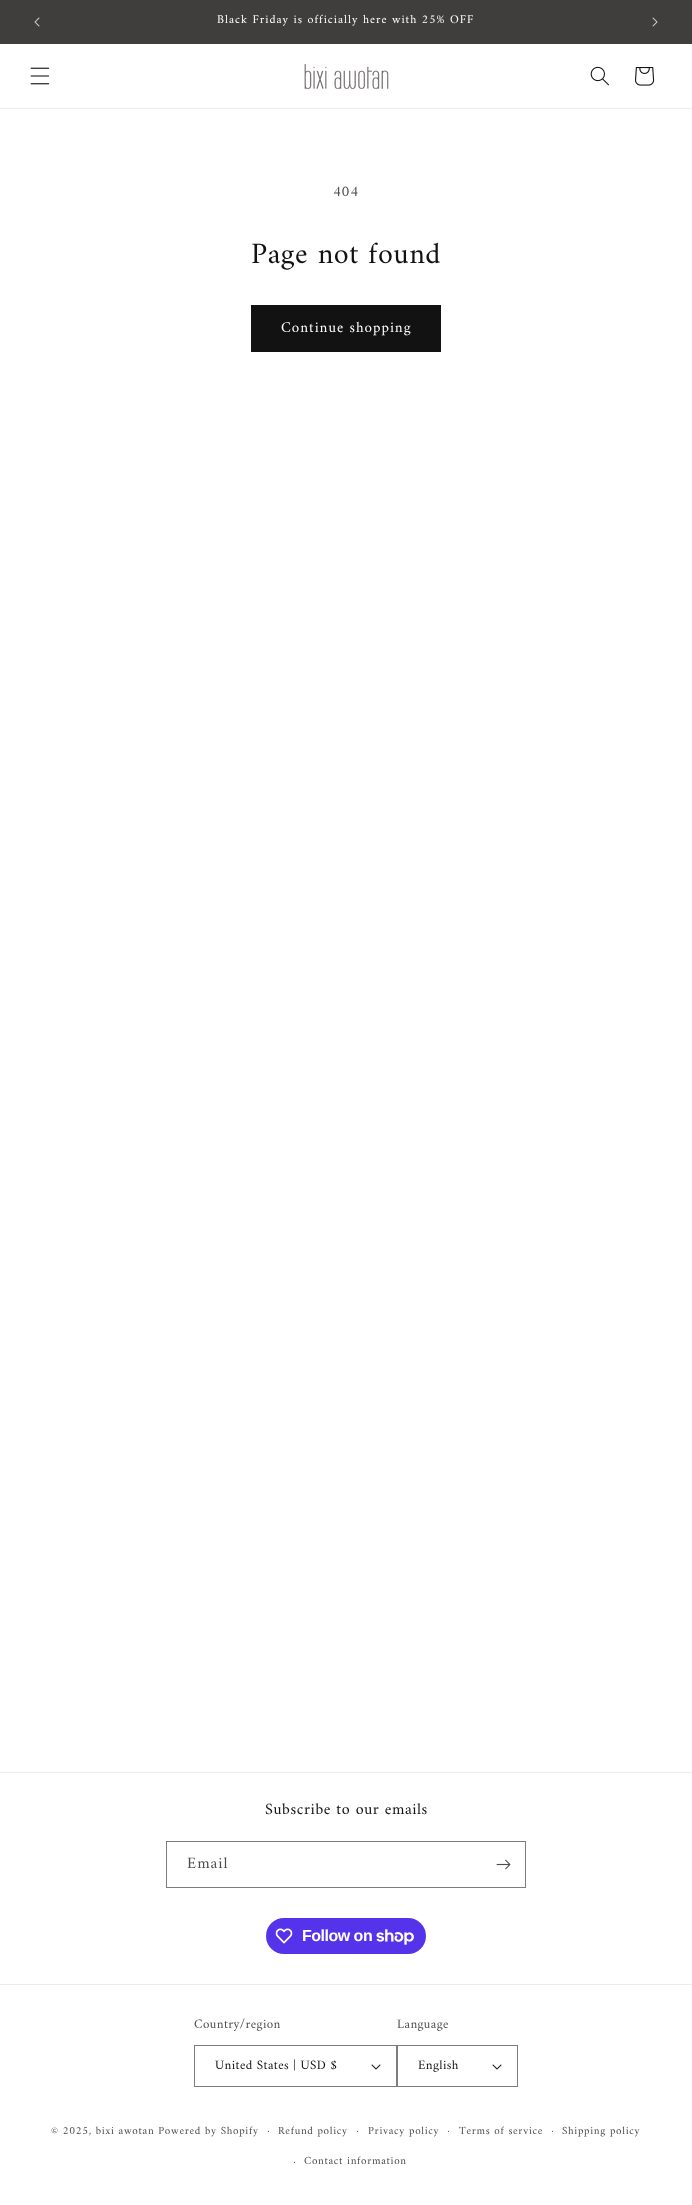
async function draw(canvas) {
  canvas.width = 692
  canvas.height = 2205
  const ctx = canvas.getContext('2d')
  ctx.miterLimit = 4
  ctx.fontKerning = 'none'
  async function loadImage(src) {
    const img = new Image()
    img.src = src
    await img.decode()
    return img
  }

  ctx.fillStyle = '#fff'
  ctx.fillRect(0, 0, 692, 2205)
  ctx.fillStyle = '#3f3e3d'
  ctx.fillRect(0, 0, 692, 44)
  ctx.drawImage(await loadImage('image0.png'), 34, 17, 6, 10)
  ctx.letterSpacing = '1px'
  ctx.font = '12px Amiri'
  ctx.fillStyle = '#fff'
  ctx.fillText('Black Friday is officially here with 25% OFF', 217, 23)
  ctx.drawImage(await loadImage('image1.png'), 652, 17, 6, 10)
  ctx.fillStyle = '#ececec'
  ctx.fillRect(0, 108, 692, 1)
  ctx.drawImage(await loadImage('image2.png'), 30, 67, 20, 18)
  ctx.drawImage(await loadImage('image3.png'), 304, 63, 85, 27)
  ctx.drawImage(await loadImage('image4.png'), 590, 66, 19, 20)
  ctx.drawImage(await loadImage('image5.png'), 635, 67, 20, 19)
  ctx.letterSpacing = '0.6px'
  ctx.font = '15px Amiri'
  ctx.fillStyle = '#4d4d4d'
  ctx.fillText('404', 333, 196)
  ctx.font = '30px Amiri'
  ctx.fillStyle = '#121212'
  ctx.fillText('Page not found', 251, 263)
  ctx.fillRect(251, 305, 190, 47)
  ctx.letterSpacing = '1px'
  ctx.font = '15px Amiri'
  ctx.fillStyle = '#fff'
  ctx.fillText('Continue shopping', 281, 332)
  ctx.fillStyle = '#ececec'
  ctx.fillRect(0, 1772, 692, 1)
  ctx.letterSpacing = '0.6px'
  ctx.font = '16px Amiri'
  ctx.fillStyle = '#121212'
  ctx.fillText('Subscribe to our emails', 265, 1814)
  ctx.strokeStyle = '#7d7d7d'
  ctx.strokeRect(166.5, 1841.5, 359, 46)
  ctx.letterSpacing = '1px'
  ctx.fillStyle = '#4d4d4d'
  ctx.fillText('Email', 187, 1868)
  ctx.drawImage(await loadImage('image6.png'), 496, 1859, 15, 11)
  ctx.fillStyle = '#5433eb'
  ctx.beginPath()
  ctx.roundRect(266, 1918, 160, 36, 18)
  ctx.fill()
  ctx.drawImage(await loadImage('image7.png'), 275, 1928, 18, 16)
  ctx.letterSpacing = '-0.5px'
  ctx.font = 'bold 16px Liberation Sans'
  ctx.fillStyle = '#fff'
  ctx.fillText('Follow on', 302, 1941)
  ctx.drawImage(await loadImage('image8.png'), 376, 1929, 38, 16)
  ctx.fillStyle = '#ececec'
  ctx.fillRect(0, 1984, 692, 1)
  ctx.letterSpacing = '0.4px'
  ctx.font = '13px Amiri'
  ctx.fillStyle = '#4d4d4d'
  ctx.fillText('Country/region', 194, 2028)
  ctx.drawImage(await loadImage('image9.png'), 371, 2064, 10, 6)
  ctx.strokeRect(194.5, 2045.5, 202, 41)
  ctx.fillStyle = '#121212'
  ctx.fillText('United States | USD $', 215, 2069)
  ctx.fillStyle = '#4d4d4d'
  ctx.fillText('Language', 397, 2028)
  ctx.drawImage(await loadImage('image9.png'), 492, 2064, 10, 6)
  ctx.strokeRect(397.5, 2045.5, 120, 41)
  ctx.fillStyle = '#121212'
  ctx.fillText('English', 418, 2069)
  ctx.letterSpacing = '0.7px'
  ctx.font = '11px Amiri'
  ctx.fillStyle = '#4d4d4d'
  ctx.fillText('© 2025, bixi awotan Powered by Shopify', 51, 2134)
  ctx.font = '10px Amiri'
  ctx.fillText('·', 267, 2134)
  ctx.font = '11px Amiri'
  ctx.fillText('Refund policy', 278, 2134)
  ctx.font = '10px Amiri'
  ctx.fillText('·', 356, 2134)
  ctx.font = '11px Amiri'
  ctx.fillText('Privacy policy', 368, 2134)
  ctx.font = '10px Amiri'
  ctx.fillText('·', 447, 2134)
  ctx.font = '11px Amiri'
  ctx.fillText('Terms of service', 459, 2134)
  ctx.font = '10px Amiri'
  ctx.fillText('·', 551, 2134)
  ctx.font = '11px Amiri'
  ctx.fillText('Shipping policy', 562, 2134)
  ctx.font = '10px Amiri'
  ctx.fillText('·', 293, 2165)
  ctx.font = '11px Amiri'
  ctx.fillText('Contact information', 304, 2164)
}

draw(document.querySelector('canvas'))
